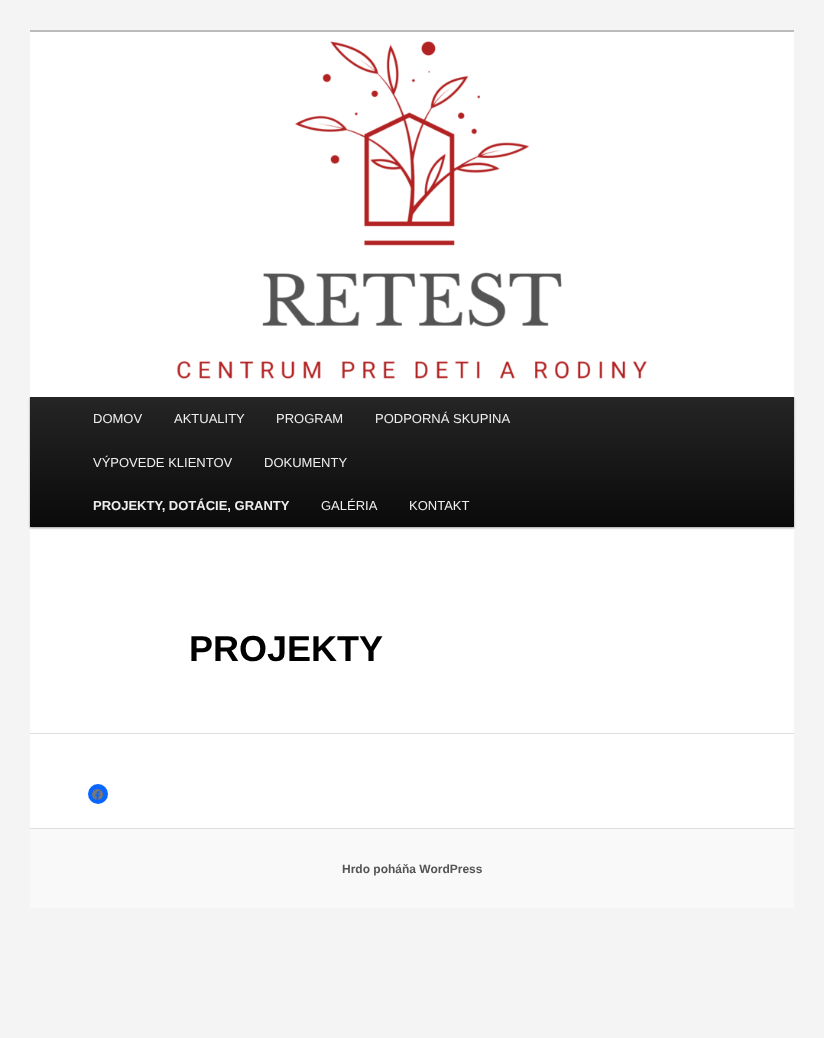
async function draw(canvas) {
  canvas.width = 824
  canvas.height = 1038
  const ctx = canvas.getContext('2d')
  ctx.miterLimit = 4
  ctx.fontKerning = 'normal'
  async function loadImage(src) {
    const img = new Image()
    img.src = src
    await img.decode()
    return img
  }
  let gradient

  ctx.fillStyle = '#f4f4f4'
  ctx.fillRect(0, 0, 824, 1038)
  ctx.fillStyle = '#fff'
  ctx.fillRect(30, 32, 764, 796)
  ctx.fillStyle = '#bbb'
  ctx.fillRect(30, 30, 764, 2)
  ctx.fillStyle = '#00000066'
  ctx.filter = 'blur(1px)'
  ctx.beginPath()
  ctx.rect(30, 398, 764, 130)
  ctx.fill()
  ctx.filter = 'none'
  ctx.drawImage(await loadImage('image0.png'), 30, 41, 764, 356)
  gradient = ctx.createLinearGradient(412, 397, 412, 527)
  gradient.addColorStop(0, '#252525')
  gradient.addColorStop(1, '#0a0a0a')
  ctx.fillStyle = gradient
  ctx.fillRect(30, 397, 764, 130)
  ctx.font = '13px Liberation Sans'
  ctx.fillStyle = '#eee'
  ctx.fillText('DOMOV', 93, 423)
  ctx.fillText('AKTUALITY', 174, 423)
  ctx.fillText('PROGRAM', 276, 423)
  ctx.fillText('PODPORNÁ SKUPINA', 375, 423)
  ctx.fillText('VÝPOVEDE KLIENTOV', 93, 467)
  ctx.fillText('DOKUMENTY', 264, 467)
  ctx.font = 'bold 13px Liberation Sans'
  ctx.fillText('PROJEKTY, DOTÁCIE, GRANTY', 93, 510)
  ctx.font = '13px Liberation Sans'
  ctx.fillText('GALÉRIA', 321, 510)
  ctx.fillText('KONTAKT', 409, 510)
  ctx.font = 'bold 36px Liberation Sans'
  ctx.fillStyle = '#000'
  ctx.fillText('PROJEKTY', 189, 661)
  ctx.fillStyle = '#ddd'
  ctx.fillRect(30, 733, 764, 1)
  ctx.fillStyle = '#0866ff'
  ctx.beginPath()
  ctx.arc(98, 794, 10, 0, 2 * Math.PI)
  ctx.fill()
  ctx.drawImage(await loadImage('image1.png'), 92, 789, 11, 11)
  ctx.fillStyle = '#f9f9f9'
  ctx.fillRect(30, 829, 764, 79)
  ctx.fillStyle = '#ddd'
  ctx.fillRect(30, 828, 764, 1)
  ctx.font = 'bold 12px Liberation Sans'
  ctx.fillStyle = '#555'
  ctx.fillText('Hrdo poháňa WordPress', 342, 873)
}

draw(document.querySelector('canvas'))
